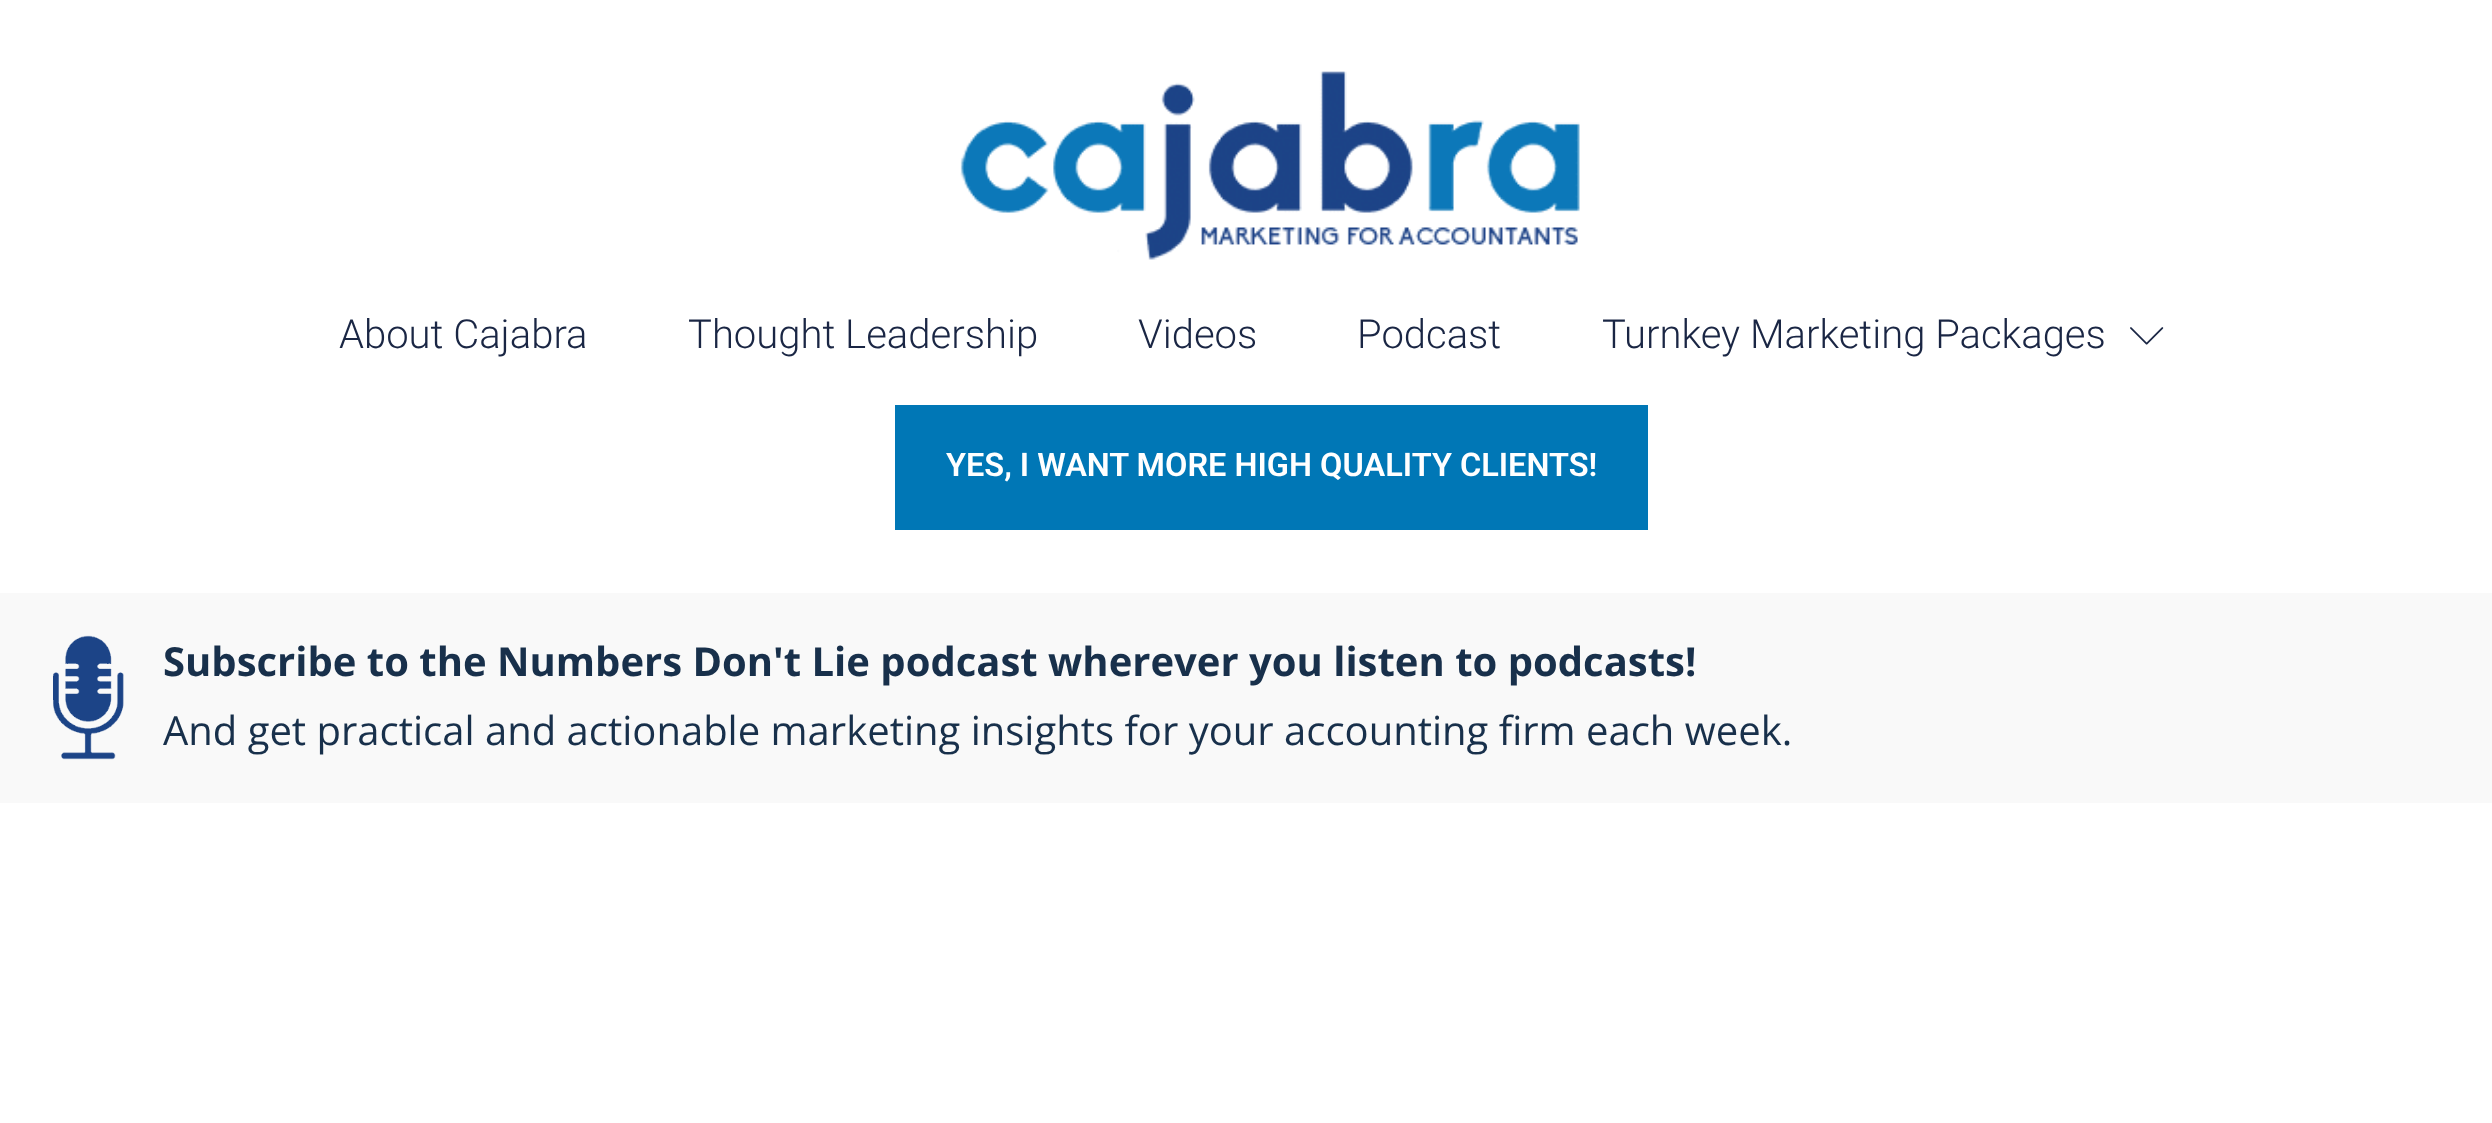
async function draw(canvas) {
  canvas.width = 2492
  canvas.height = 1123
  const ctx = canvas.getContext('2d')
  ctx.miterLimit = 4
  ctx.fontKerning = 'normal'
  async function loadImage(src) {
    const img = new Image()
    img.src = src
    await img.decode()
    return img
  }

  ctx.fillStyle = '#fff'
  ctx.fillRect(0, 0, 2492, 1123)
  ctx.drawImage(await loadImage('image0.png'), 960, 71, 620, 189)
  ctx.font = '300 40px Roboto'
  ctx.fillStyle = '#1a2644'
  ctx.fillText('About Cajabra', 339, 348)
  ctx.fillText('Thought Leadership', 688, 348)
  ctx.fillText('Videos', 1138, 348)
  ctx.fillText('Podcast', 1357, 348)
  ctx.fillText('Turnkey Marketing Packages', 1602, 348)
  ctx.drawImage(await loadImage('image1.png'), 2130, 327, 34, 18)
  ctx.fillStyle = '#0077b6'
  ctx.fillRect(895, 405, 753, 125)
  ctx.font = '600 32.5px Roboto'
  ctx.fillStyle = '#fff'
  ctx.fillText('YES, I WANT MORE HIGH QUALITY CLIENTS!', 946, 476)
  ctx.fillStyle = '#f9f9f9'
  ctx.fillRect(0, 593, 2492, 210)
  ctx.drawImage(await loadImage('image2.png'), 53, 635, 71, 125)
  ctx.font = 'bold 40px Open Sans'
  ctx.fillStyle = '#18304b'
  ctx.fillText('Subscribe to the Numbers Don\'t Lie podcast wherever you listen to podcasts!', 163, 676)
  ctx.font = '40px Open Sans'
  ctx.fillText('And get practical and actionable marketing insights for your accounting firm each week.', 163, 745)
}

draw(document.querySelector('canvas'))
